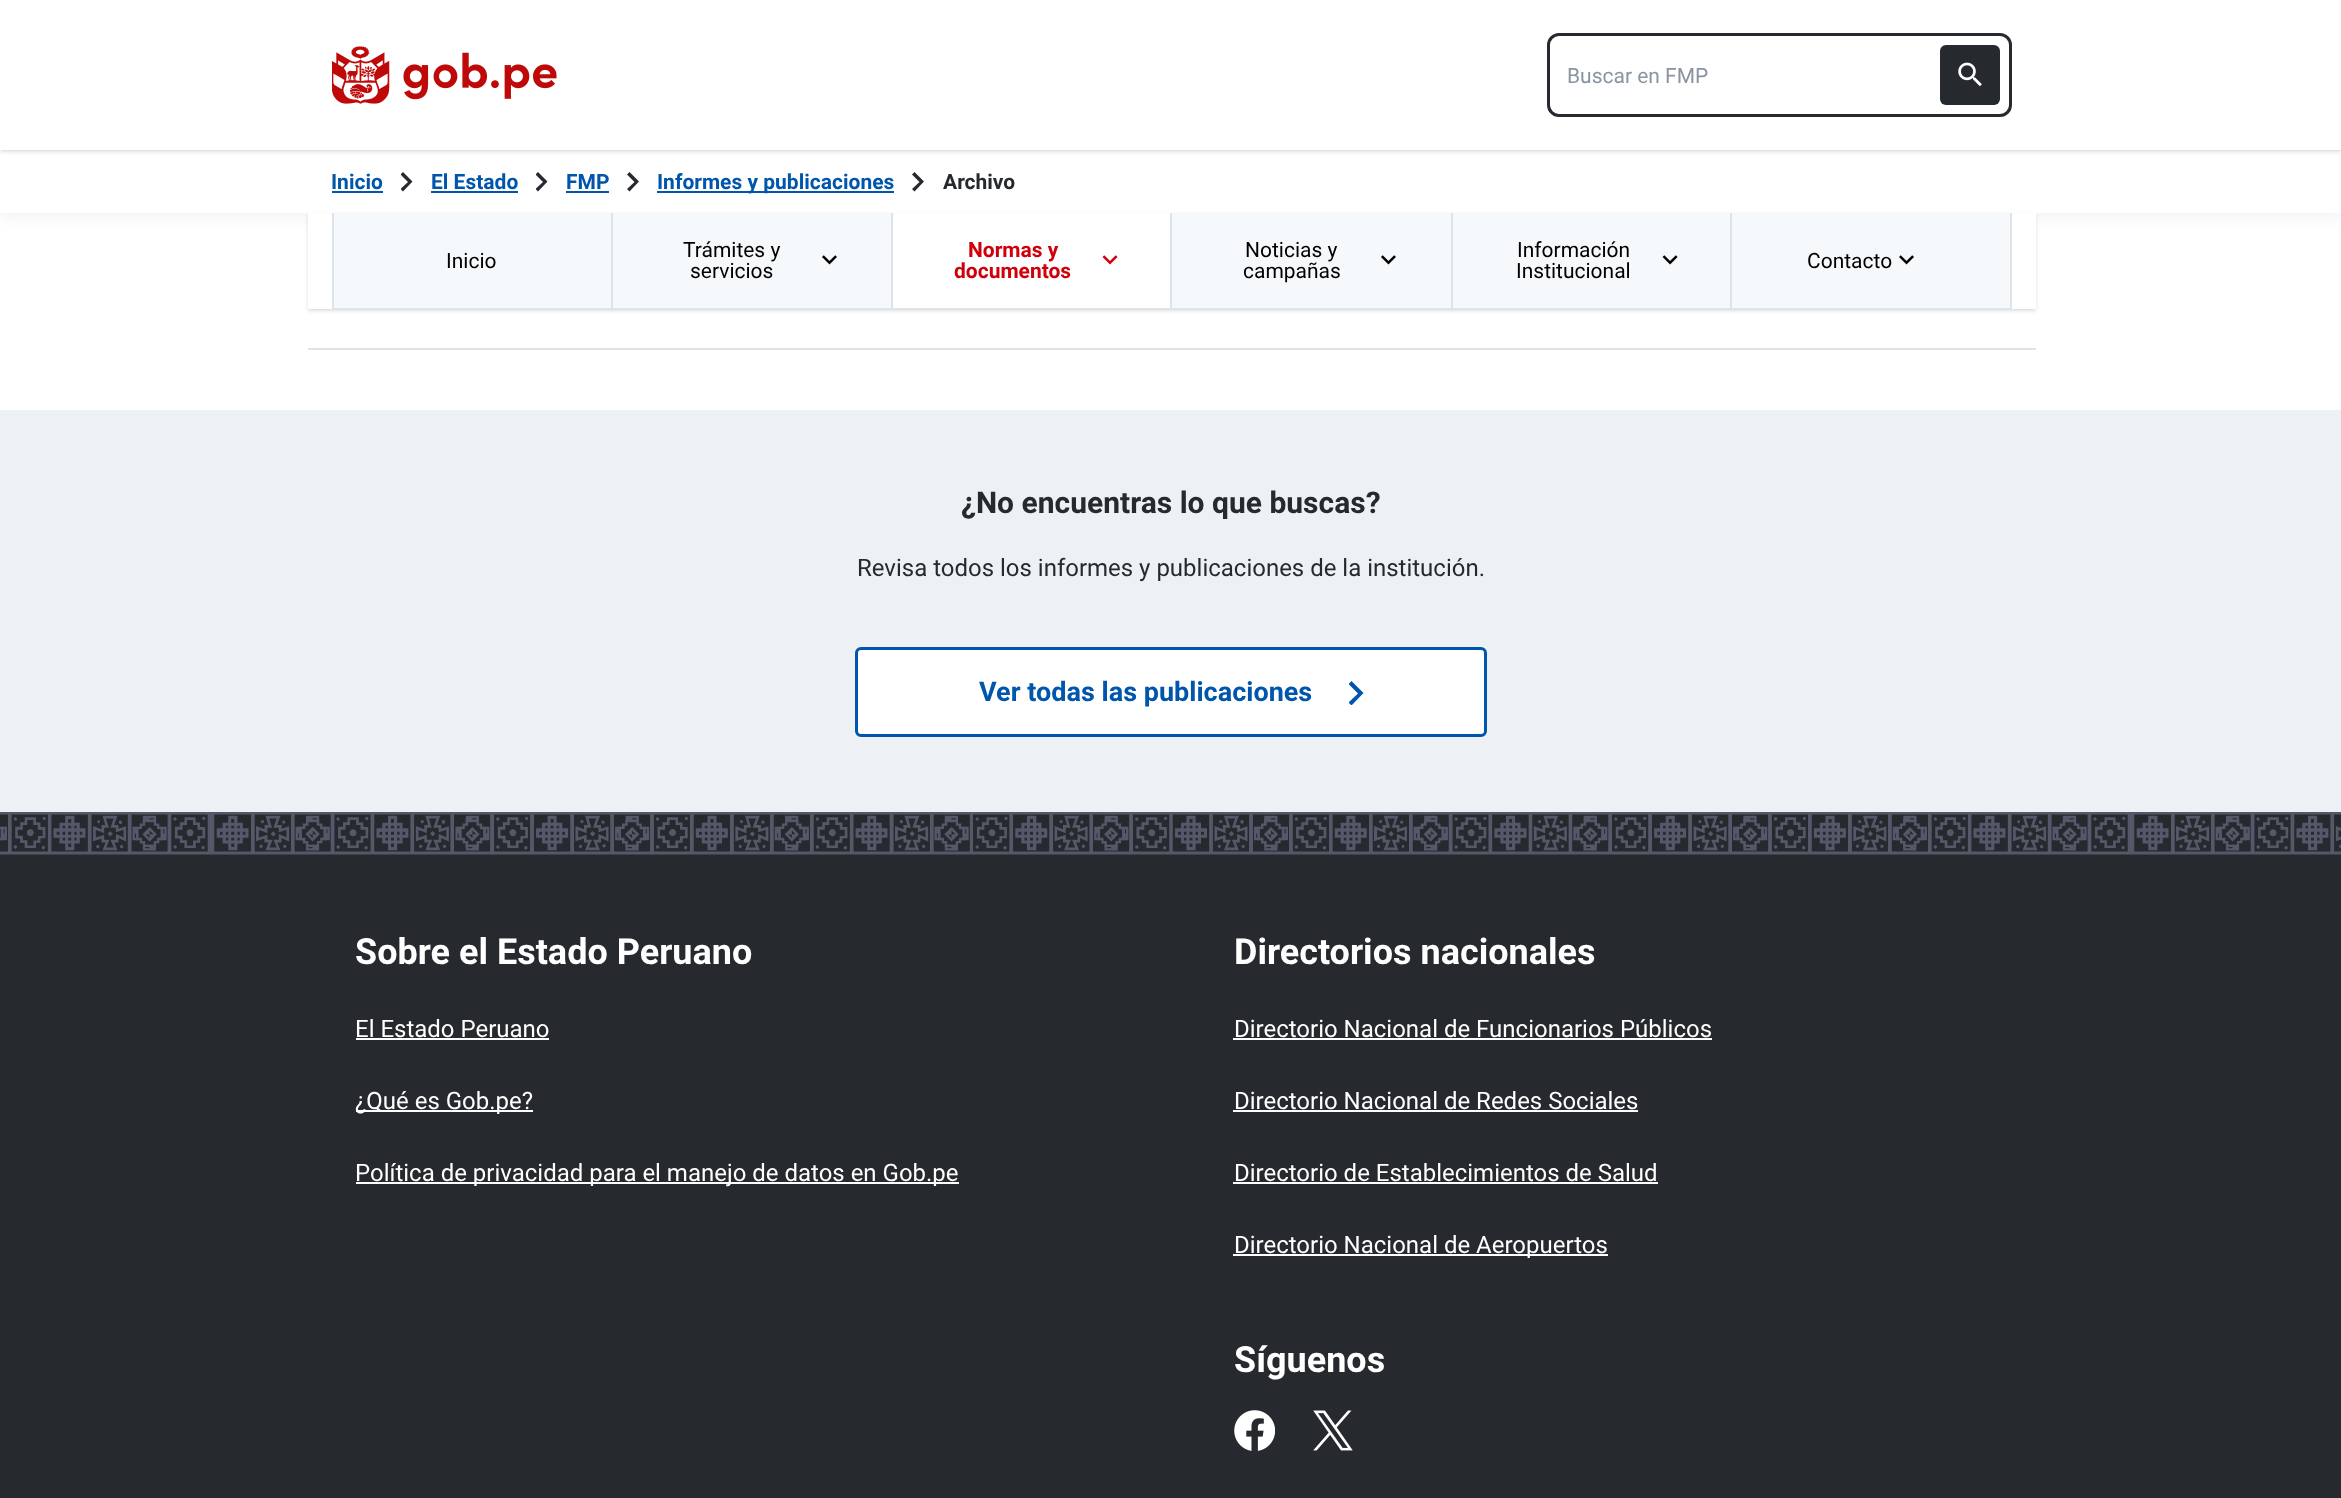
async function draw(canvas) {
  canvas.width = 2341
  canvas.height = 1498
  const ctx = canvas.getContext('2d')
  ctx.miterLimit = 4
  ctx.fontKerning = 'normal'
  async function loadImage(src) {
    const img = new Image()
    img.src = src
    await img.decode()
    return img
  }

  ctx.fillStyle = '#fff'
  ctx.fillRect(0, 0, 2341, 1498)
  ctx.fillStyle = '#bec7d340'
  ctx.filter = 'blur(8px)'
  ctx.beginPath()
  ctx.rect(-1, 150, 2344, 66)
  ctx.fill()
  ctx.filter = 'none'
  ctx.fillStyle = '#fff'
  ctx.fillRect(0, 150, 2341, 63)
  ctx.fillStyle = '#0000001a'
  ctx.filter = 'blur(1.5px)'
  ctx.beginPath()
  ctx.rect(2, 3, 2338, 147)
  ctx.fill()
  ctx.filter = 'none'
  ctx.filter = 'blur(2px)'
  ctx.beginPath()
  ctx.rect(0, 2, 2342, 150)
  ctx.fill()
  ctx.filter = 'none'
  ctx.fillStyle = '#fff'
  ctx.fillRect(0, 0, 2341, 150)
  ctx.drawImage(await loadImage('image0.png'), 332, 46, 225, 58)
  ctx.beginPath()
  ctx.roundRect(1548.5, 34.5, 462, 81, 10.5)
  ctx.strokeStyle = '#26292e'
  ctx.lineWidth = 3
  ctx.stroke()
  ctx.font = '21px Roboto'
  ctx.fillStyle = '#8a94a2'
  ctx.fillText('Buscar en FMP', 1567, 83)
  ctx.fillStyle = '#26292e'
  ctx.beginPath()
  ctx.roundRect(1940, 45, 60, 60, 6)
  ctx.fill()
  ctx.drawImage(await loadImage('image1.png'), 1958, 62, 24, 25)
  ctx.font = 'bold 21px Roboto'
  ctx.fillStyle = '#0056ac'
  ctx.fillText('Inicio', 331, 189)
  ctx.fillRect(332, 191, 51, 2)
  ctx.save()
  ctx.beginPath()
  ctx.rect(401, 170, 12, 24)
  ctx.clip()
  ctx.fillStyle = '#26292e'
  ctx.beginPath()
  ctx.moveTo(400.5, 189)
  ctx.lineTo(408, 182)
  ctx.lineTo(400.5, 174.5)
  ctx.lineTo(403, 172)
  ctx.lineTo(412.5, 181.5)
  ctx.lineTo(403, 191.5)
  ctx.closePath()
  ctx.fill()
  ctx.restore()
  ctx.fillText('El Estado', 431, 189)
  ctx.fillRect(431, 191, 87, 2)
  ctx.save()
  ctx.beginPath()
  ctx.rect(536, 170, 12, 24)
  ctx.clip()
  ctx.fillStyle = '#26292e'
  ctx.beginPath()
  ctx.moveTo(535.5, 189)
  ctx.lineTo(543, 182)
  ctx.lineTo(535.5, 174.5)
  ctx.lineTo(538, 172)
  ctx.lineTo(547.5, 181.5)
  ctx.lineTo(538, 191.5)
  ctx.closePath()
  ctx.fill()
  ctx.restore()
  ctx.fillText('FMP', 566, 189)
  ctx.fillRect(566, 191, 43, 2)
  ctx.fillStyle = '#26292e'
  ctx.beginPath()
  ctx.moveTo(627, 189)
  ctx.lineTo(634.5, 182)
  ctx.lineTo(627, 174.5)
  ctx.lineTo(629.5, 172)
  ctx.lineTo(639, 181.5)
  ctx.lineTo(629.5, 191.5)
  ctx.closePath()
  ctx.fill()
  ctx.fillStyle = '#0056ac'
  ctx.fillRect(657, 191, 237, 2)
  ctx.fillText('Informes y publicaciones', 657, 189)
  ctx.fillStyle = '#26292e'
  ctx.beginPath()
  ctx.moveTo(912, 189)
  ctx.lineTo(919.5, 182)
  ctx.lineTo(912, 174.5)
  ctx.lineTo(914.5, 172)
  ctx.lineTo(924, 181.5)
  ctx.lineTo(914.5, 191.5)
  ctx.closePath()
  ctx.fill()
  ctx.fillText('Archivo', 943, 189)
  ctx.fillStyle = '#0000001a'
  ctx.filter = 'blur(1.5px)'
  ctx.beginPath()
  ctx.rect(309, 216, 1725, 93)
  ctx.fill()
  ctx.filter = 'none'
  ctx.filter = 'blur(2px)'
  ctx.beginPath()
  ctx.rect(308, 215, 1728, 96)
  ctx.fill()
  ctx.filter = 'none'
  ctx.fillStyle = '#fff'
  ctx.fillRect(308, 213, 1728, 96)
  ctx.fillStyle = '#f6f9fc'
  ctx.fillRect(334, 213, 1676, 95)
  ctx.fillStyle = '#dee3ea'
  ctx.fillRect(332, 308, 1680, 2)
  ctx.fillRect(332, 213, 2, 95)
  ctx.font = '21px Roboto'
  ctx.fillStyle = '#000'
  ctx.fillText('Inicio', 446, 268)
  ctx.fillStyle = '#dee3ea'
  ctx.fillRect(611, 213, 2, 95)
  ctx.fillStyle = '#000'
  ctx.fillText('Trámites y', 683, 257)
  ctx.drawImage(await loadImage('image2.png'), 822, 255, 15, 10)
  ctx.fillText('servicios', 690, 278)
  ctx.fillStyle = '#fff'
  ctx.fillRect(893, 213, 277, 95)
  ctx.fillStyle = '#dee3ea'
  ctx.fillRect(891, 213, 2, 95)
  ctx.font = 'bold 21px Roboto'
  ctx.fillStyle = '#cf000b'
  ctx.fillText('Normas y', 968, 257)
  ctx.drawImage(await loadImage('image3.png'), 1102, 255, 16, 10)
  ctx.fillText('documentos', 954, 278)
  ctx.fillStyle = '#dee3ea'
  ctx.fillRect(1170, 213, 2, 95)
  ctx.font = '21px Roboto'
  ctx.fillStyle = '#000'
  ctx.fillText('Noticias y', 1245, 257)
  ctx.drawImage(await loadImage('image4.png'), 1381, 255, 15, 10)
  ctx.fillText('campañas', 1243, 278)
  ctx.fillStyle = '#dee3ea'
  ctx.fillRect(1451, 213, 2, 95)
  ctx.fillStyle = '#000'
  ctx.fillText('Información', 1517, 257)
  ctx.drawImage(await loadImage('image5.png'), 1662, 255, 16, 10)
  ctx.fillText('Institucional', 1516, 278)
  ctx.fillStyle = '#dee3ea'
  ctx.fillRect(2010, 213, 2, 95)
  ctx.fillRect(1730, 213, 2, 95)
  ctx.fillStyle = '#000'
  ctx.fillText('Contacto', 1807, 268)
  ctx.drawImage(await loadImage('image6.png'), 1899, 255, 15, 10)
  ctx.fillStyle = '#dee3ea'
  ctx.fillRect(308, 348, 1728, 2)
  ctx.fillStyle = '#edf0f4'
  ctx.fillRect(0, 410, 2341, 402)
  ctx.font = 'bold 30px Roboto'
  ctx.fillStyle = '#26292e'
  ctx.fillText('¿No encuentras lo que buscas?', 961, 513)
  ctx.font = '24px Roboto'
  ctx.fillText('Revisa todos los informes y publicaciones de la institución.', 857, 576)
  ctx.fillStyle = '#fff'
  ctx.beginPath()
  ctx.roundRect(856.5, 648.5, 629, 87, 4.5)
  ctx.fill()
  ctx.strokeStyle = '#0056ac'
  ctx.stroke()
  ctx.font = 'bold 27px Roboto'
  ctx.fillStyle = '#0056ac'
  ctx.fillText('Ver todas las publicaciones', 979, 701)
  ctx.save()
  ctx.beginPath()
  ctx.rect(1349, 681, 15, 24)
  ctx.clip()
  ctx.beginPath()
  ctx.moveTo(1348.5, 702.5)
  ctx.lineTo(1358, 693.5)
  ctx.lineTo(1348.5, 684)
  ctx.lineTo(1351.5, 681)
  ctx.lineTo(1363.5, 693)
  ctx.lineTo(1351.5, 705.5)
  ctx.closePath()
  ctx.fill()
  ctx.restore()
  ctx.fillStyle = '#26292e'
  ctx.fillRect(0, 814, 2341, 684)
  ctx.drawImage(await loadImage('image7.png'), 0, 812, 2341, 43)
  ctx.font = 'bold 36px Roboto'
  ctx.fillStyle = '#fff'
  ctx.fillText('Sobre el Estado Peruano', 355, 964)
  ctx.font = '24px Roboto'
  ctx.fillText('El Estado Peruano', 355, 1037)
  ctx.fillRect(356, 1038, 193, 2)
  ctx.fillRect(356, 1110, 177, 2)
  ctx.fillText('¿Qué es Gob.pe?', 355, 1109)
  ctx.fillRect(356, 1182, 603, 2)
  ctx.fillText('Política de privacidad para el manejo de datos en Gob.pe', 355, 1181)
  ctx.font = 'bold 36px Roboto'
  ctx.fillText('Directorios nacionales', 1234, 964)
  ctx.font = '24px Roboto'
  ctx.fillText('Directorio Nacional de Funcionarios Públicos', 1234, 1037)
  ctx.fillRect(1233, 1038, 479, 2)
  ctx.fillText('Directorio Nacional de Redes Sociales', 1234, 1109)
  ctx.fillRect(1233, 1110, 405, 2)
  ctx.fillText('Directorio de Establecimientos de Salud', 1234, 1181)
  ctx.fillRect(1233, 1182, 425, 2)
  ctx.fillRect(1233, 1254, 375, 2)
  ctx.fillText('Directorio Nacional de Aeropuertos', 1234, 1253)
  ctx.font = 'bold 36px Roboto'
  ctx.fillText('Síguenos', 1234, 1372)
  ctx.drawImage(await loadImage('image8.png'), 1234, 1410, 41, 41)
  ctx.drawImage(await loadImage('image9.png'), 1313, 1410, 40, 41)
}

draw(document.querySelector('canvas'))
